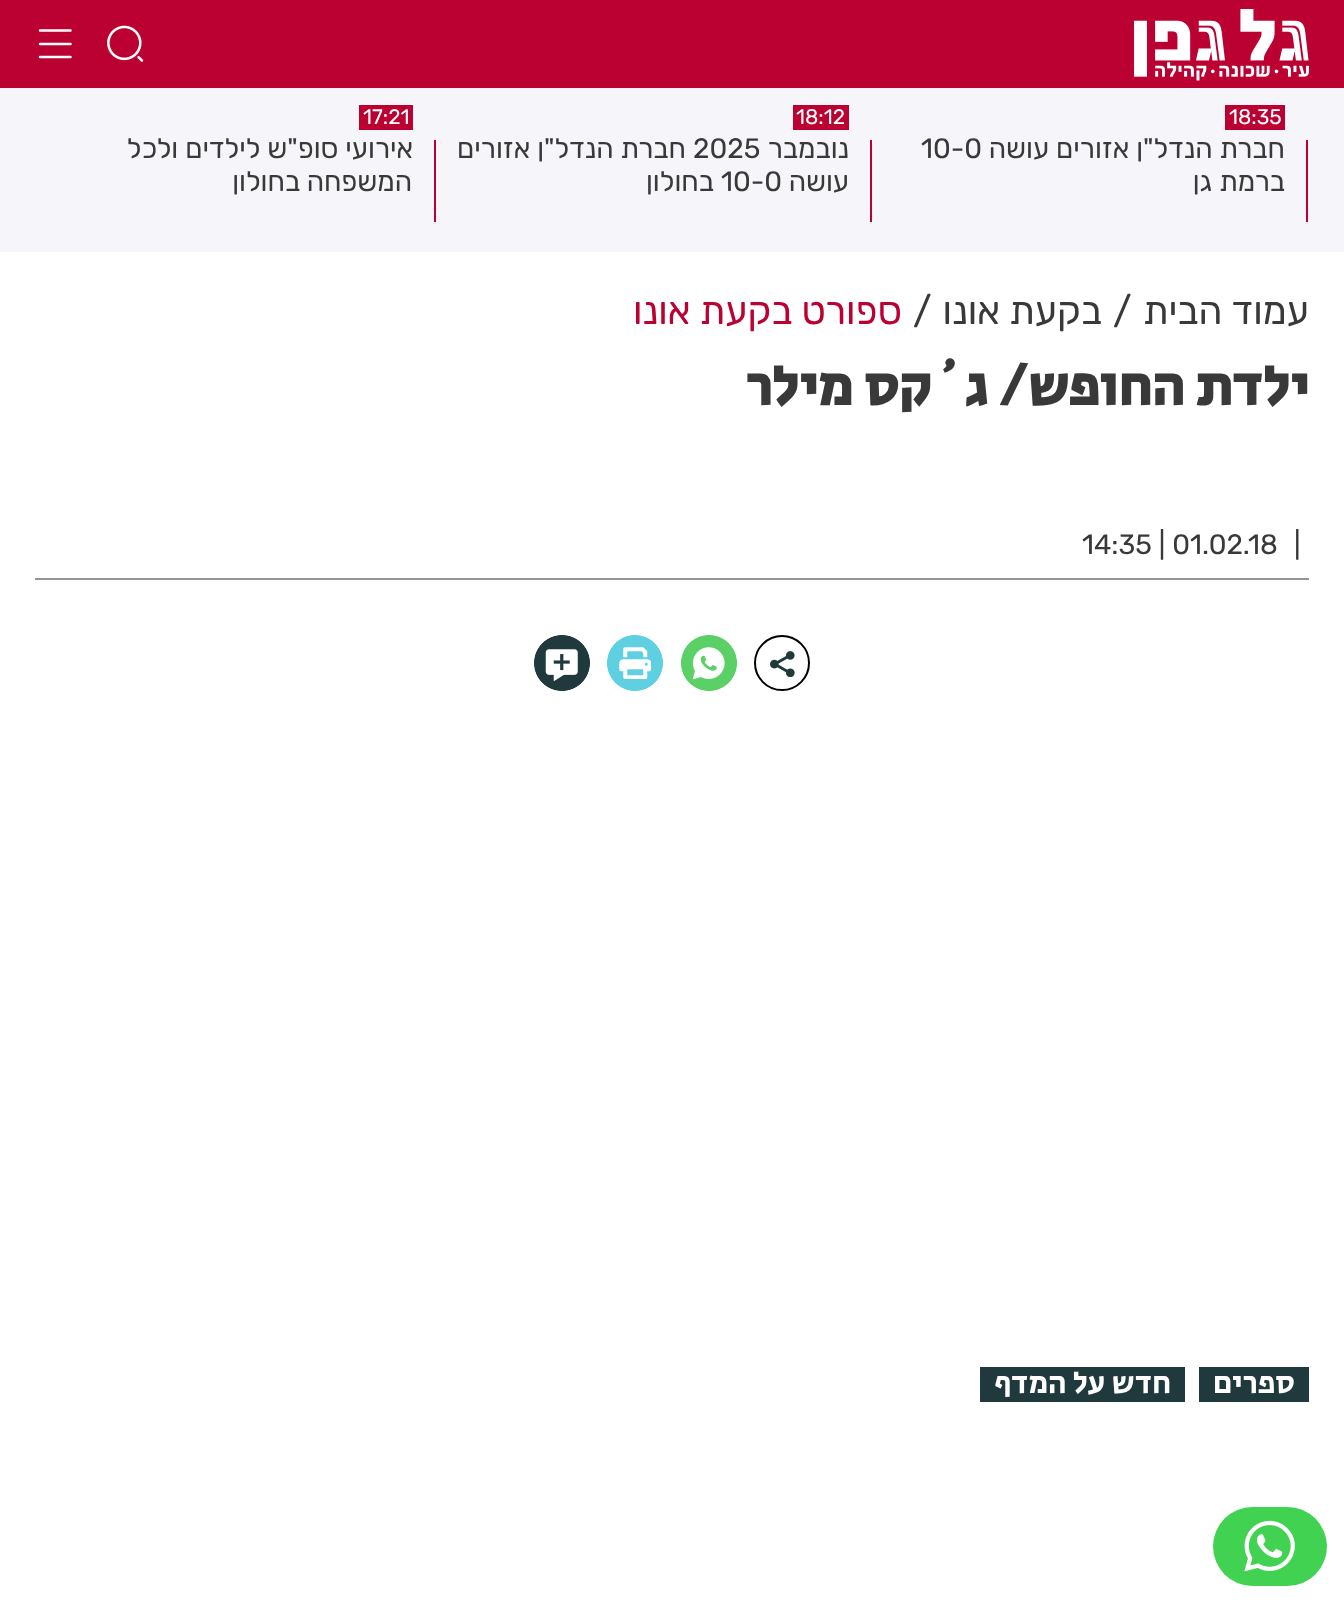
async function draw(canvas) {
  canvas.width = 1344
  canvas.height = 1603
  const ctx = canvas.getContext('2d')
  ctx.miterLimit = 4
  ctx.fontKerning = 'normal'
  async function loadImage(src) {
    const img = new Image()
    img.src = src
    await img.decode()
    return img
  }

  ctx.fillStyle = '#fff'
  ctx.fillRect(0, 0, 1344, 1603)
  ctx.fillStyle = '#ba0132'
  ctx.fillRect(0, 0, 1344, 88)
  ctx.drawImage(await loadImage('image0.png'), 1134, 9, 175, 72)
  ctx.drawImage(await loadImage('image1.png'), 107, 25, 37, 37)
  ctx.beginPath()
  ctx.moveTo(40, 30.5)
  ctx.lineTo(70.5, 30.5)
  ctx.moveTo(40, 44)
  ctx.lineTo(70.5, 44)
  ctx.moveTo(40, 57)
  ctx.lineTo(70.5, 57)
  ctx.strokeStyle = '#fff'
  ctx.lineWidth = 2.5
  ctx.lineCap = 'round'
  ctx.stroke()
  ctx.fillStyle = '#f5f5fa'
  ctx.fillRect(0, 88, 1344, 164)
  ctx.fillStyle = '#ba0132'
  ctx.fillRect(1306, 140, 2, 82)
  ctx.fillRect(1225, 105, 60, 25)
  ctx.font = '21px Rubik'
  ctx.fillStyle = '#fff'
  ctx.fillText('18:35', 1229, 124)
  ctx.direction = 'rtl'
  ctx.font = '28px Rubik'
  ctx.fillStyle = '#393939'
  ctx.fillText('חברת הנדל"ן אזורים עושה', 1285, 158)
  ctx.direction = 'ltr'
  ctx.fillText('10-0', 921, 158)
  ctx.wordSpacing = '1px'
  ctx.direction = 'rtl'
  ctx.fillText('ברמת גן', 1285, 191)
  ctx.fillStyle = '#ba0132'
  ctx.fillRect(870, 140, 2, 82)
  ctx.fillRect(793, 105, 56, 25)
  ctx.wordSpacing = '0px'
  ctx.direction = 'ltr'
  ctx.font = '21px Rubik'
  ctx.fillStyle = '#fff'
  ctx.fillText('18:12', 796, 124)
  ctx.direction = 'rtl'
  ctx.font = '28px Rubik'
  ctx.fillStyle = '#393939'
  ctx.fillText('נובמבר', 849, 158)
  ctx.direction = 'ltr'
  ctx.fillText('2025', 693, 158)
  ctx.direction = 'rtl'
  ctx.fillText('חברת הנדל"ן אזורים', 686, 158)
  ctx.fillText('עושה', 849, 191)
  ctx.direction = 'ltr'
  ctx.fillText('10-0', 721, 191)
  ctx.direction = 'rtl'
  ctx.fillText('בחולון', 714, 191)
  ctx.fillStyle = '#ba0132'
  ctx.fillRect(434, 140, 2, 82)
  ctx.fillRect(359, 105, 54, 25)
  ctx.direction = 'ltr'
  ctx.font = '21px Rubik'
  ctx.fillStyle = '#fff'
  ctx.fillText('17:21', 363, 124)
  ctx.direction = 'rtl'
  ctx.font = '28px Rubik'
  ctx.fillStyle = '#393939'
  ctx.fillText('אירועי סופ"ש לילדים ולכל', 413, 158)
  ctx.fillText('המשפחה בחולון', 412, 191)
  ctx.wordSpacing = '1px'
  ctx.font = '38.5px Rubik'
  ctx.fillText('עמוד הבית', 1309, 324)
  ctx.wordSpacing = '0px'
  ctx.direction = 'ltr'
  ctx.fillText('/', 1113, 324)
  ctx.direction = 'rtl'
  ctx.fillText('בקעת אונו', 1102, 324)
  ctx.direction = 'ltr'
  ctx.fillText('/', 913, 324)
  ctx.direction = 'rtl'
  ctx.fillStyle = '#ba0132'
  ctx.fillText('ספורט בקעת אונו', 902, 324)
  ctx.font = 'bold 56px Secular One'
  ctx.fillStyle = '#393939'
  ctx.fillText('ילדת החופש/ ג´קס מילר', 1309, 405)
  ctx.fillStyle = '#949696'
  ctx.fillRect(35, 578, 1274, 2)
  ctx.direction = 'ltr'
  ctx.font = '28px Rubik'
  ctx.fillStyle = '#393939'
  ctx.fillText('|', 1294, 554)
  ctx.fillText('14:35 | 01.02.18', 1082, 554)
  ctx.beginPath()
  ctx.arc(782, 663, 27, 0, 2 * Math.PI)
  ctx.strokeStyle = '#000'
  ctx.lineWidth = 2
  ctx.stroke()
  ctx.drawImage(await loadImage('image2.png'), 770, 651, 25, 26)
  ctx.drawImage(await loadImage('image3.png'), 681, 635, 56, 56)
  ctx.drawImage(await loadImage('image4.png'), 607, 635, 56, 56)
  ctx.drawImage(await loadImage('image5.png'), 534, 635, 56, 56)
  ctx.fillStyle = '#20393d'
  ctx.fillRect(1199, 1367, 110, 35)
  ctx.direction = 'rtl'
  ctx.font = '31.5px Secular One'
  ctx.fillStyle = '#fff'
  ctx.fillText('ספרים', 1295, 1393)
  ctx.fillStyle = '#20393d'
  ctx.fillRect(980, 1367, 205, 35)
  ctx.fillStyle = '#fff'
  ctx.fillText('חדש על המדף', 1171, 1393)
  ctx.fillStyle = '#41d251'
  ctx.beginPath()
  ctx.roundRect(1213, 1507, 114, 79, 39.5)
  ctx.fill()
  ctx.drawImage(await loadImage('image6.png'), 1244, 1520, 51, 52)
}

draw(document.querySelector('canvas'))
